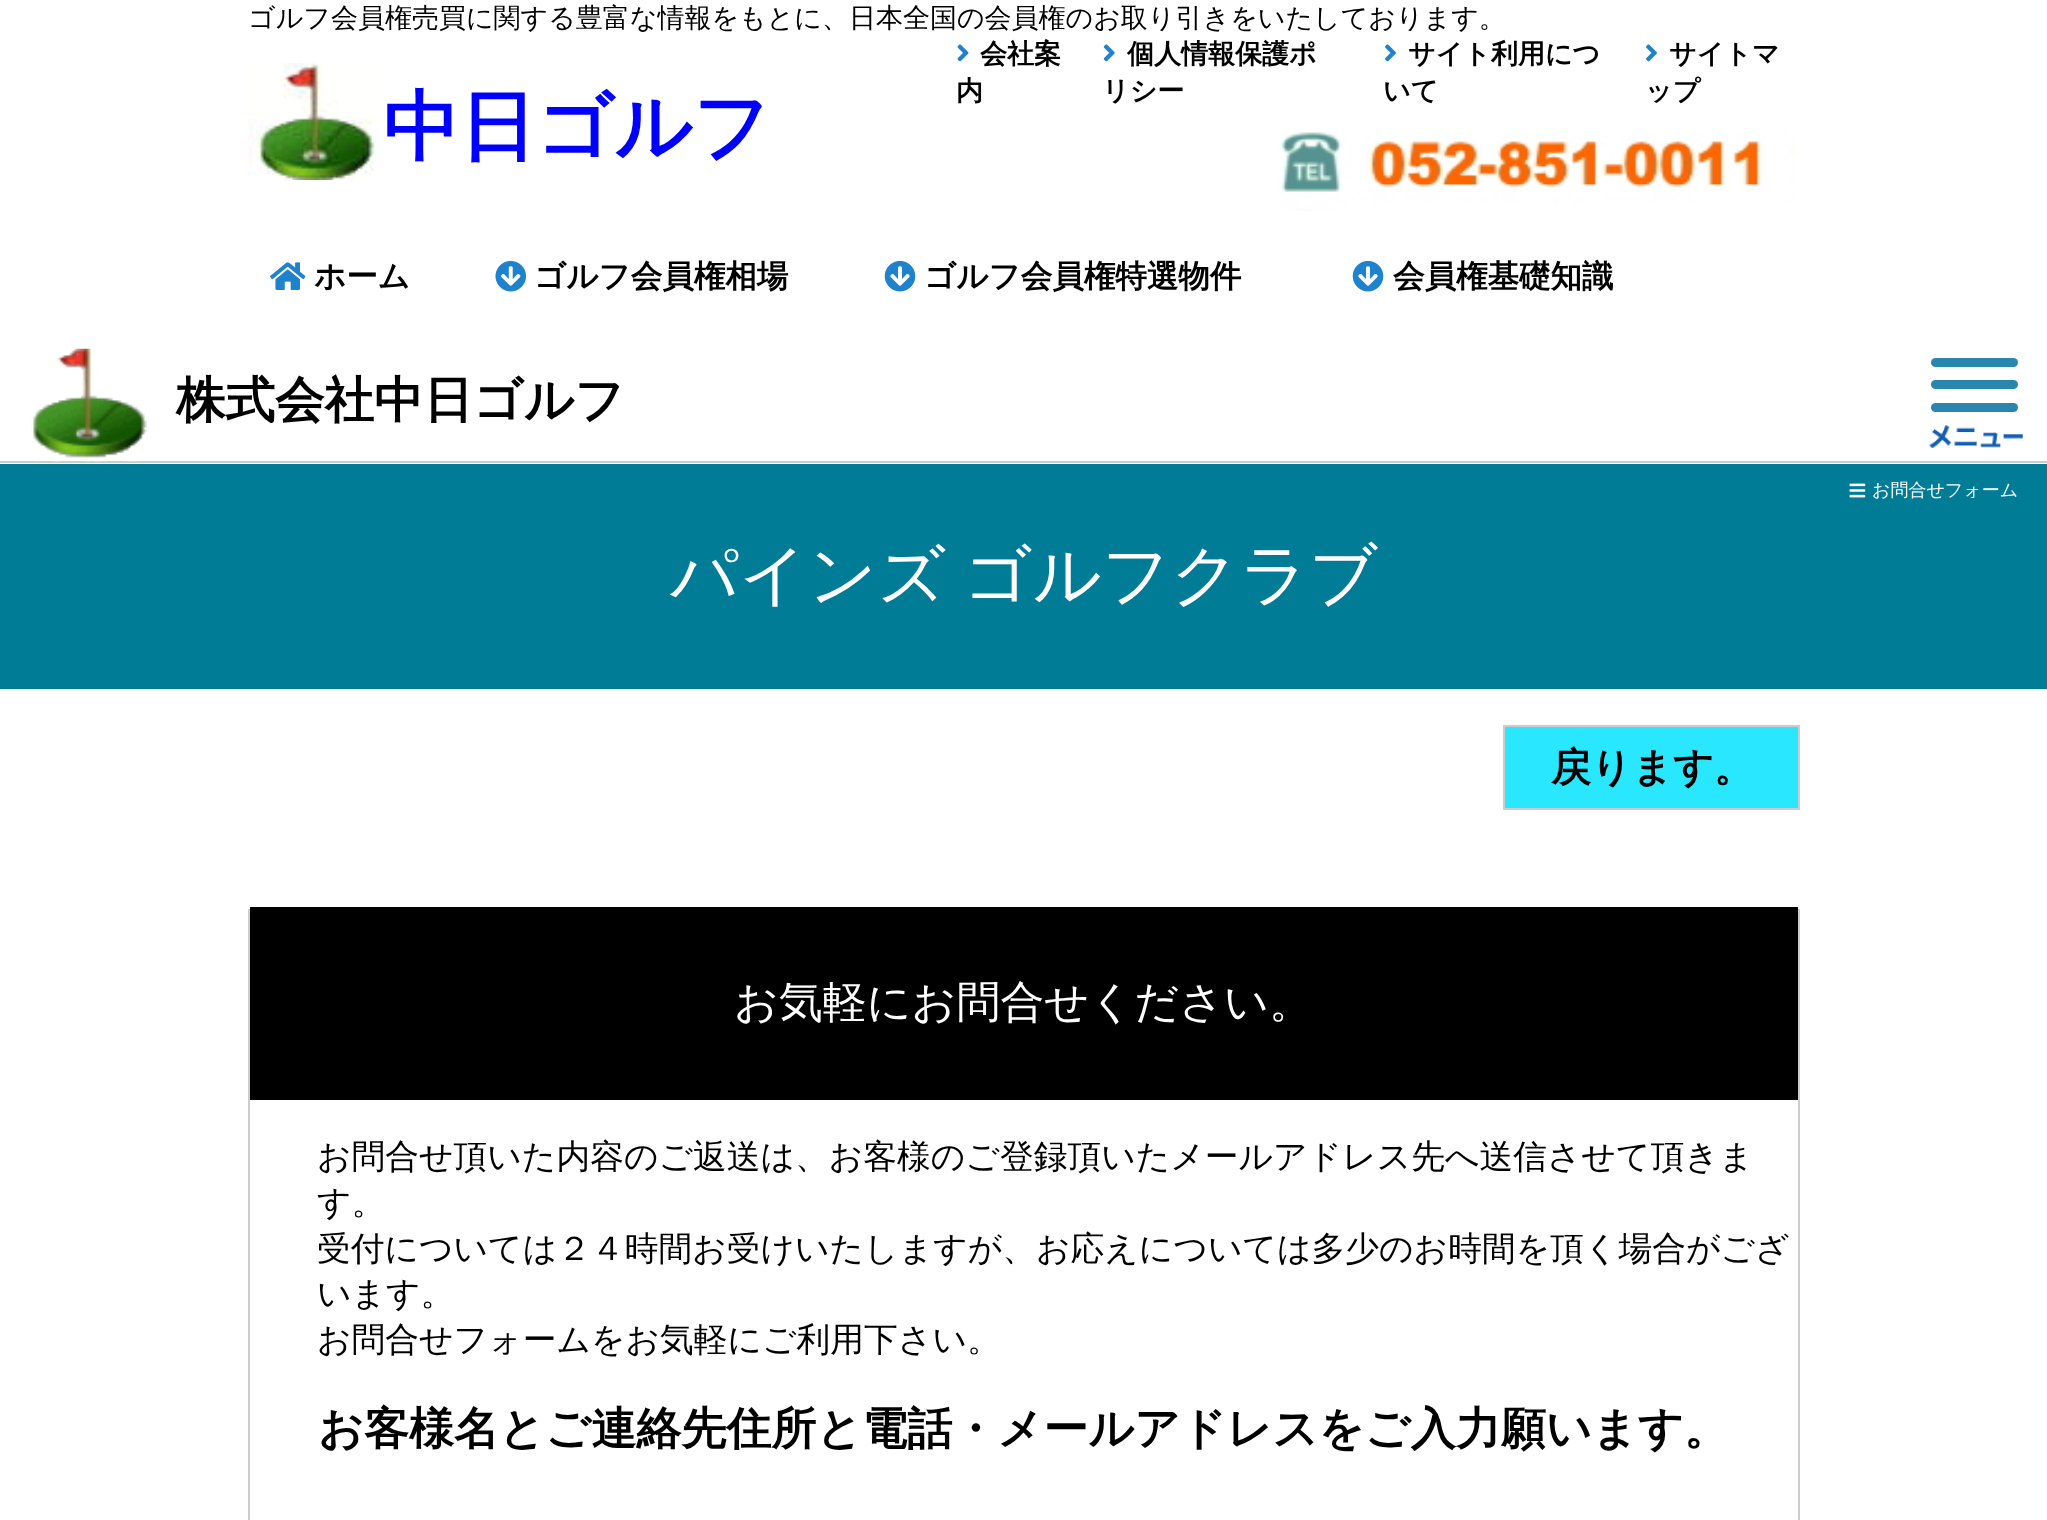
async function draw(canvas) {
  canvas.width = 2047
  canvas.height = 1520
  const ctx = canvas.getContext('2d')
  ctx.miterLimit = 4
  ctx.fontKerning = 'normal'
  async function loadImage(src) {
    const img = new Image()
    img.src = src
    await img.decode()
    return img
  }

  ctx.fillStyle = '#fff'
  ctx.fillRect(0, 0, 2047, 1520)
  ctx.font = '500 27px WenQuanYi Zen Hei'
  ctx.fillStyle = '#000'
  ctx.fillText('ゴルフ会員権売買に関する豊富な情報をもとに、日本全国の会員権のお取り引きをいたしております。', 248, 27)
  ctx.drawImage(await loadImage('image0.png'), 957, 44, 12, 18)
  ctx.font = 'bold 27px WenQuanYi Zen Hei'
  ctx.fillText('会社案', 980, 63)
  ctx.fillText('内', 956, 100)
  ctx.drawImage(await loadImage('image1.png'), 1103, 44, 12, 18)
  ctx.fillText('個人情報保護ポ', 1127, 63)
  ctx.fillText('リシー', 1102, 100)
  ctx.drawImage(await loadImage('image2.png'), 1385, 44, 11, 18)
  ctx.fillText('サイト利用につ', 1408, 63)
  ctx.fillText('いて', 1383, 100)
  ctx.drawImage(await loadImage('image2.png'), 1646, 44, 11, 18)
  ctx.fillText('サイトマ', 1669, 63)
  ctx.fillText('ップ', 1645, 100)
  ctx.drawImage(await loadImage('image3.png'), 1279, 132, 518, 79)
  ctx.drawImage(await loadImage('image4.png'), 247, 63, 134, 117)
  ctx.font = 'bold 76.5px WenQuanYi Zen Hei'
  ctx.fillStyle = '#00f'
  ctx.fillText('中日ゴルフ', 383, 153)
  ctx.drawImage(await loadImage('image5.png'), 270, 262, 36, 28)
  ctx.font = 'bold 31.5px WenQuanYi Zen Hei'
  ctx.fillStyle = '#000'
  ctx.fillText('ホーム', 314, 287)
  ctx.drawImage(await loadImage('image6.png'), 495, 260, 31, 32)
  ctx.fillText('ゴルフ会員権相場', 534, 287)
  ctx.drawImage(await loadImage('image7.png'), 884, 260, 32, 32)
  ctx.fillText('ゴルフ会員権特選物件', 924, 287)
  ctx.drawImage(await loadImage('image7.png'), 1352, 260, 32, 32)
  ctx.fillText('会員権基礎知識', 1393, 287)
  ctx.fillStyle = '#ccc'
  ctx.fillRect(0, 461, 2047, 2)
  ctx.drawImage(await loadImage('image8.png'), 30, 348, 117, 114)
  ctx.font = 'bold 49.5px WenQuanYi Zen Hei'
  ctx.fillStyle = '#000'
  ctx.fillText('株式会社中日ゴルフ', 176, 417)
  ctx.fillStyle = '#2987af'
  ctx.beginPath()
  ctx.roundRect(1931, 380, 87, 9, 4.5)
  ctx.fill()
  ctx.beginPath()
  ctx.roundRect(1931, 358, 87, 9, 4.5)
  ctx.fill()
  ctx.beginPath()
  ctx.roundRect(1931, 403, 87, 9, 4.5)
  ctx.fill()
  ctx.drawImage(await loadImage('image9.png'), 1928, 425, 95, 24)
  ctx.fillStyle = '#007c97'
  ctx.fillRect(0, 464, 2047, 225)
  ctx.drawImage(await loadImage('image10.png'), 1849, 483, 17, 15)
  ctx.font = '500 18px WenQuanYi Zen Hei'
  ctx.fillStyle = '#fff'
  ctx.fillText('お問合せフォーム', 1872, 496)
  ctx.wordSpacing = '-3px'
  ctx.font = '500 67.5px WenQuanYi Zen Hei'
  ctx.fillText('パインズ ゴルフクラブ', 670, 598)
  ctx.fillStyle = '#28e7ff'
  ctx.beginPath()
  ctx.rect(1504, 726, 295, 83)
  ctx.fill()
  ctx.strokeStyle = '#ccc'
  ctx.lineWidth = 2
  ctx.stroke()
  ctx.wordSpacing = '0px'
  ctx.font = 'bold 40px WenQuanYi Zen Hei'
  ctx.fillStyle = '#000'
  ctx.fillText('戻ります。', 1551, 781)
  ctx.strokeRect(249, 910, 1550, 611)
  ctx.fillRect(250, 907, 1548, 193)
  ctx.font = '500 43.9px WenQuanYi Zen Hei'
  ctx.fillStyle = '#fff'
  ctx.fillText('お気軽にお問合せください。', 734, 1017)
  ctx.font = '500 33.75px WenQuanYi Zen Hei'
  ctx.fillStyle = '#000'
  ctx.fillText('お問合せ頂いた内容のご返送は、お客様のご登録頂いたメールアドレス先へ送信させて頂きま', 317, 1168)
  ctx.fillText('す。', 317, 1214)
  ctx.fillText('受付については２４時間お受けいたしますが、お応えについては多少のお時間を頂く場合がござ', 317, 1260)
  ctx.fillText('います。', 317, 1305)
  ctx.fillText('お問合せフォームをお気軽にご利用下さい。', 317, 1351)
  ctx.font = 'bold 45px WenQuanYi Zen Hei'
  ctx.fillText('お客様名とご連絡先住所と電話・メールアドレスをご入力願います。', 318, 1444)
}

draw(document.querySelector('canvas'))
